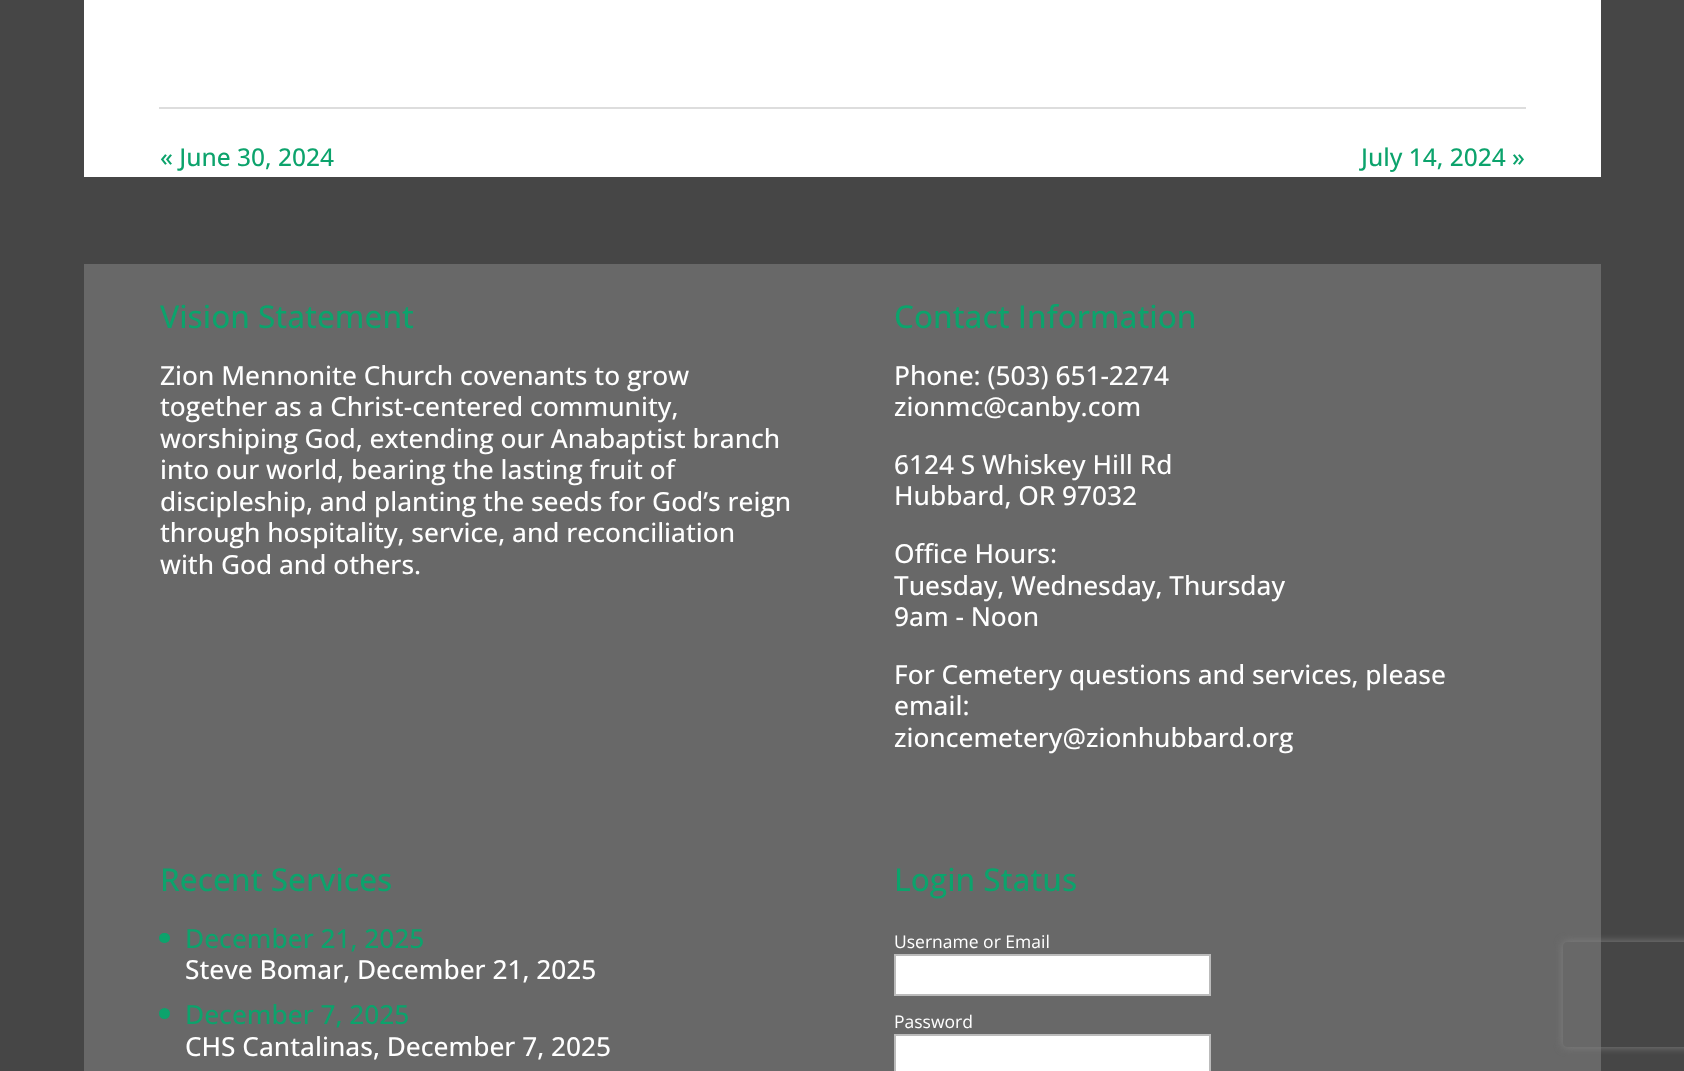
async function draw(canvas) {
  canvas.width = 1684
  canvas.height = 1071
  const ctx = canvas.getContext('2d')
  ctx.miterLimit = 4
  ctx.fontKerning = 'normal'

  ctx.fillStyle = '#464646'
  ctx.fillRect(0, 0, 1684, 1071)
  ctx.fillStyle = '#fff'
  ctx.fillRect(84, 0, 1517, 177)
  ctx.fillStyle = '#ddd'
  ctx.fillRect(159, 107, 1367, 2)
  ctx.font = '500 24.5px Open Sans'
  ctx.fillStyle = '#0ca36c'
  ctx.fillText('« June 30, 2024', 160, 166)
  ctx.fillText('July 14, 2024 »', 1361, 166)
  ctx.fillStyle = '#686868'
  ctx.fillRect(84, 264, 1517, 807)
  ctx.font = '500 31.5px Open Sans'
  ctx.fillStyle = '#0ca36c'
  ctx.fillText('Vision Statement', 160, 328)
  ctx.font = '500 26.25px Open Sans'
  ctx.fillStyle = '#fff'
  ctx.fillText('Zion Mennonite Church covenants to grow', 160, 385)
  ctx.fillText('together as a Christ-centered community,', 160, 416)
  ctx.fillText('worshiping God, extending our Anabaptist branch', 160, 448)
  ctx.fillText('into our world, bearing the lasting fruit of', 160, 479)
  ctx.fillText('discipleship, and planting the seeds for God’s reign', 160, 511)
  ctx.fillText('through hospitality, service, and reconciliation', 160, 542)
  ctx.fillText('with God and others.', 160, 574)
  ctx.font = '500 31.5px Open Sans'
  ctx.fillStyle = '#0ca36c'
  ctx.fillText('Contact Information', 894, 328)
  ctx.font = '500 26.25px Open Sans'
  ctx.fillStyle = '#fff'
  ctx.fillText('Phone: (503) 651-2274', 894, 385)
  ctx.fillText('zionmc@canby.com', 894, 416)
  ctx.fillText('6124 S Whiskey Hill Rd', 894, 474)
  ctx.fillText('Hubbard, OR 97032', 894, 505)
  ctx.fillText('Office Hours:', 894, 563)
  ctx.fillText('Tuesday, Wednesday, Thursday', 894, 595)
  ctx.fillText('9am - Noon', 894, 626)
  ctx.fillText('For Cemetery questions and services, please', 894, 684)
  ctx.fillText('email:', 894, 715)
  ctx.fillText('zioncemetery@zionhubbard.org', 894, 747)
  ctx.font = '500 31.5px Open Sans'
  ctx.fillStyle = '#0ca36c'
  ctx.fillText('Recent Services', 160, 891)
  ctx.beginPath()
  ctx.roundRect(159, 933, 11, 10, 5)
  ctx.fill()
  ctx.font = '500 26.25px Open Sans'
  ctx.fillText('December 21, 2025', 185, 948)
  ctx.fillStyle = '#fff'
  ctx.fillText('Steve Bomar, December 21, 2025', 185, 979)
  ctx.fillStyle = '#0ca36c'
  ctx.beginPath()
  ctx.arc(164.5, 1013.5, 5.5, 0, 2 * Math.PI)
  ctx.fill()
  ctx.fillText('December 7, 2025', 185, 1024)
  ctx.fillStyle = '#fff'
  ctx.fillText('CHS Cantalinas, December 7, 2025', 185, 1056)
  ctx.font = '500 31.5px Open Sans'
  ctx.fillStyle = '#0ca36c'
  ctx.fillText('Login Status', 894, 891)
  ctx.font = '17.5px Open Sans'
  ctx.fillStyle = '#fff'
  ctx.fillText('Username or Email', 894, 948)
  ctx.beginPath()
  ctx.rect(895, 955, 315, 40)
  ctx.fill()
  ctx.strokeStyle = '#bbb'
  ctx.lineWidth = 2
  ctx.stroke()
  ctx.fillText('Password', 894, 1028)
  ctx.beginPath()
  ctx.rect(895, 1035, 315, 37)
  ctx.fill()
  ctx.stroke()
  ctx.save()
  ctx.beginPath()
  ctx.moveTo(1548, 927)
  ctx.lineTo(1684, 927)
  ctx.lineTo(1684, 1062)
  ctx.lineTo(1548, 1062)
  ctx.closePath()
  ctx.moveTo(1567, 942)
  ctx.lineTo(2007, 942)
  ctx.bezierCurveTo(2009, 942, 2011, 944, 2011, 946)
  ctx.lineTo(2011, 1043)
  ctx.bezierCurveTo(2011, 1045, 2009, 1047, 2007, 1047)
  ctx.lineTo(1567, 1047)
  ctx.bezierCurveTo(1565, 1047, 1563, 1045, 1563, 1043)
  ctx.lineTo(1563, 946)
  ctx.bezierCurveTo(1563, 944, 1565, 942, 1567, 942)
  ctx.closePath()
  ctx.clip('evenodd')
  ctx.fillStyle = '#808080'
  ctx.filter = 'blur(4.5px)'
  ctx.beginPath()
  ctx.roundRect(1563, 942, 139, 105, 4)
  ctx.fill()
  ctx.filter = 'none'
  ctx.restore()
}

draw(document.querySelector('canvas'))
